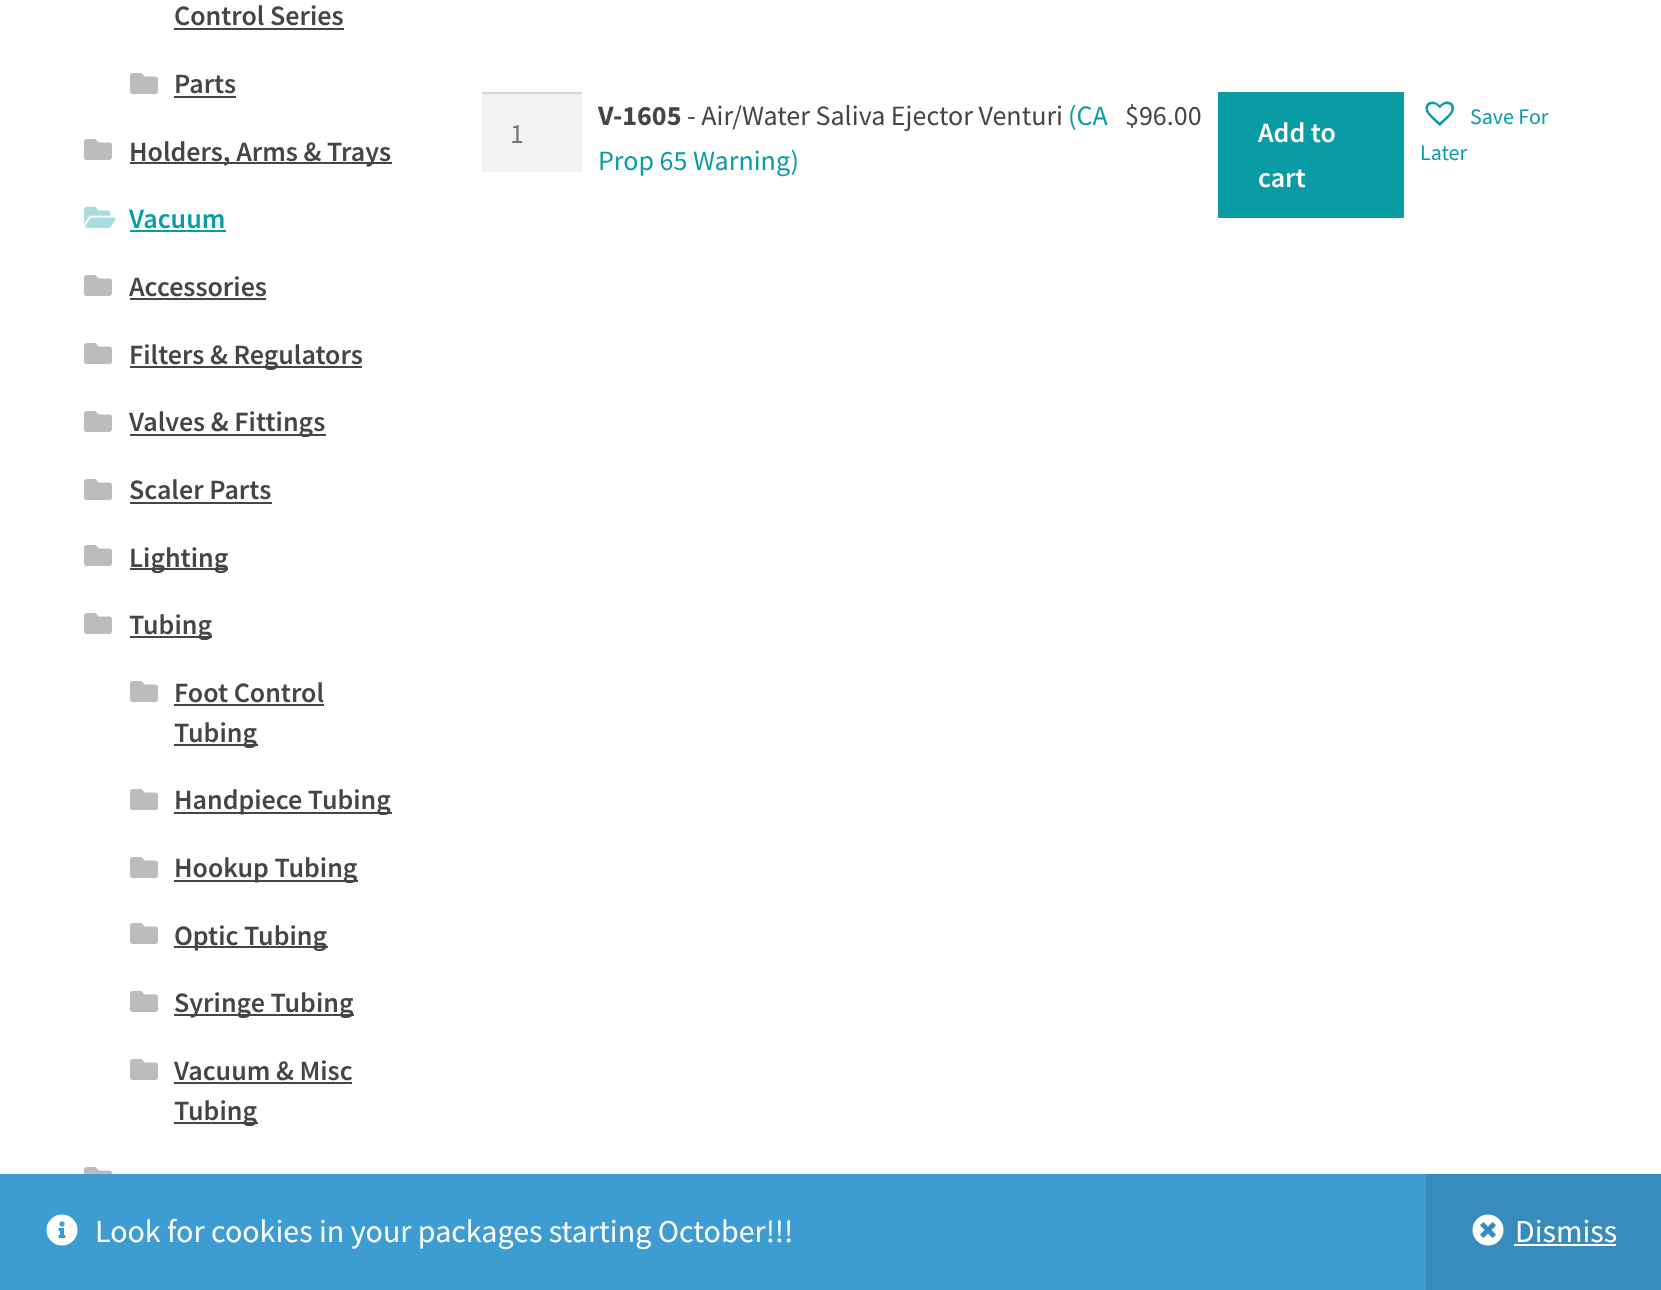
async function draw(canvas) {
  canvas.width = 1661
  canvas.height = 1290
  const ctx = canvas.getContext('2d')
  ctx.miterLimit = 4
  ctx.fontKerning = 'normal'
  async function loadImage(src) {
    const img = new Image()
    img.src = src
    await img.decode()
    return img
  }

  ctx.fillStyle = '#fff'
  ctx.fillRect(0, 0, 1661, 1290)
  ctx.font = '600 28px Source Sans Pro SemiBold'
  ctx.fillStyle = '#454545'
  ctx.fillText('Control Series', 174, 25)
  ctx.fillRect(174, 28, 170, 2)
  ctx.drawImage(await loadImage('image0.png'), 130, 73, 28, 21)
  ctx.fillText('Parts', 174, 93)
  ctx.fillRect(174, 96, 62, 2)
  ctx.drawImage(await loadImage('image0.png'), 84, 139, 28, 21)
  ctx.fillRect(130, 162, 262, 2)
  ctx.fillText('Holders, Arms & Trays', 129, 161)
  ctx.drawImage(await loadImage('image1.png'), 84, 207, 32, 21)
  ctx.fillStyle = '#099ca4'
  ctx.fillText('Vacuum', 129, 228)
  ctx.fillRect(130, 230, 96, 2)
  ctx.drawImage(await loadImage('image0.png'), 84, 275, 28, 21)
  ctx.fillStyle = '#454545'
  ctx.fillText('Accessories', 129, 296)
  ctx.fillRect(130, 298, 136, 2)
  ctx.drawImage(await loadImage('image0.png'), 84, 343, 28, 21)
  ctx.fillRect(130, 366, 232, 2)
  ctx.fillText('Filters & Regulators', 129, 364)
  ctx.drawImage(await loadImage('image0.png'), 84, 411, 28, 21)
  ctx.fillRect(130, 434, 196, 2)
  ctx.fillText('Valves & Fittings', 129, 431)
  ctx.drawImage(await loadImage('image0.png'), 84, 479, 28, 21)
  ctx.fillText('Scaler Parts', 129, 499)
  ctx.fillRect(130, 502, 142, 2)
  ctx.drawImage(await loadImage('image0.png'), 84, 545, 28, 21)
  ctx.fillRect(130, 568, 98, 2)
  ctx.fillText('Lighting', 129, 567)
  ctx.drawImage(await loadImage('image0.png'), 84, 613, 28, 21)
  ctx.fillRect(130, 636, 82, 2)
  ctx.fillText('Tubing', 129, 634)
  ctx.drawImage(await loadImage('image0.png'), 130, 681, 28, 21)
  ctx.fillText('Foot Control', 174, 702)
  ctx.fillRect(174, 704, 150, 2)
  ctx.fillRect(174, 744, 84, 2)
  ctx.fillText('Tubing', 174, 742)
  ctx.drawImage(await loadImage('image0.png'), 130, 789, 28, 21)
  ctx.fillRect(174, 812, 218, 2)
  ctx.fillText('Handpiece Tubing', 174, 809)
  ctx.drawImage(await loadImage('image0.png'), 130, 857, 28, 21)
  ctx.fillRect(174, 880, 184, 2)
  ctx.fillText('Hookup Tubing', 174, 877)
  ctx.drawImage(await loadImage('image0.png'), 130, 923, 28, 21)
  ctx.fillRect(174, 946, 154, 2)
  ctx.fillText('Optic Tubing', 174, 945)
  ctx.drawImage(await loadImage('image0.png'), 130, 991, 28, 21)
  ctx.fillRect(174, 1014, 180, 2)
  ctx.fillText('Syringe Tubing', 174, 1012)
  ctx.drawImage(await loadImage('image0.png'), 130, 1059, 28, 21)
  ctx.fillText('Vacuum & Misc', 174, 1080)
  ctx.fillRect(174, 1082, 178, 2)
  ctx.fillRect(174, 1122, 84, 2)
  ctx.fillText('Tubing', 174, 1120)
  ctx.drawImage(await loadImage('image2.png'), 84, 1167, 28, 7)
  ctx.fillStyle = '#f2f2f2'
  ctx.fillRect(482, 94, 100, 78)
  ctx.fillStyle = '#d4d4d4'
  ctx.fillRect(482, 92, 100, 2)
  ctx.font = '28px Source Sans Pro'
  ctx.fillStyle = '#757575'
  ctx.fillText('1', 510, 143)
  ctx.font = 'bold 28px Source Sans Pro'
  ctx.fillStyle = '#454545'
  ctx.fillText('V-1605', 598, 125)
  ctx.font = '28px Source Sans Pro'
  ctx.fillText('- Air/Water Saliva Ejector Venturi', 687, 125)
  ctx.fillStyle = '#099ca4'
  ctx.fillText('(CA', 1068, 125)
  ctx.fillText('Prop 65 Warning)', 598, 170)
  ctx.fillStyle = '#454545'
  ctx.fillText('$96.00', 1125, 125)
  ctx.fillStyle = '#099ca4'
  ctx.fillRect(1218, 92, 186, 126)
  ctx.font = '600 28px Source Sans Pro SemiBold'
  ctx.fillStyle = '#fff'
  ctx.fillText('Add to', 1258, 142)
  ctx.fillText('cart', 1258, 187)
  ctx.drawImage(await loadImage('image3.png'), 1425, 101, 29, 25)
  ctx.font = '22px Source Sans Pro'
  ctx.fillStyle = '#099ca4'
  ctx.fillText('Save For', 1470, 124)
  ctx.fillText('Later', 1420, 160)
  ctx.fillStyle = '#3d9cd2'
  ctx.fillRect(0, 1174, 1426, 116)
  ctx.drawImage(await loadImage('image4.png'), 46, 1214, 32, 32)
  ctx.font = '32px Source Sans Pro'
  ctx.fillStyle = '#fff'
  ctx.fillText('Look for cookies in your packages starting October!!!', 95, 1242)
  ctx.fillStyle = '#378cbd'
  ctx.fillRect(1426, 1174, 235, 116)
  ctx.drawImage(await loadImage('image5.png'), 1472, 1214, 32, 32)
  ctx.fillStyle = '#fff'
  ctx.fillText('Dismiss', 1515, 1242)
  ctx.fillRect(1514, 1244, 102, 2)
}

draw(document.querySelector('canvas'))
